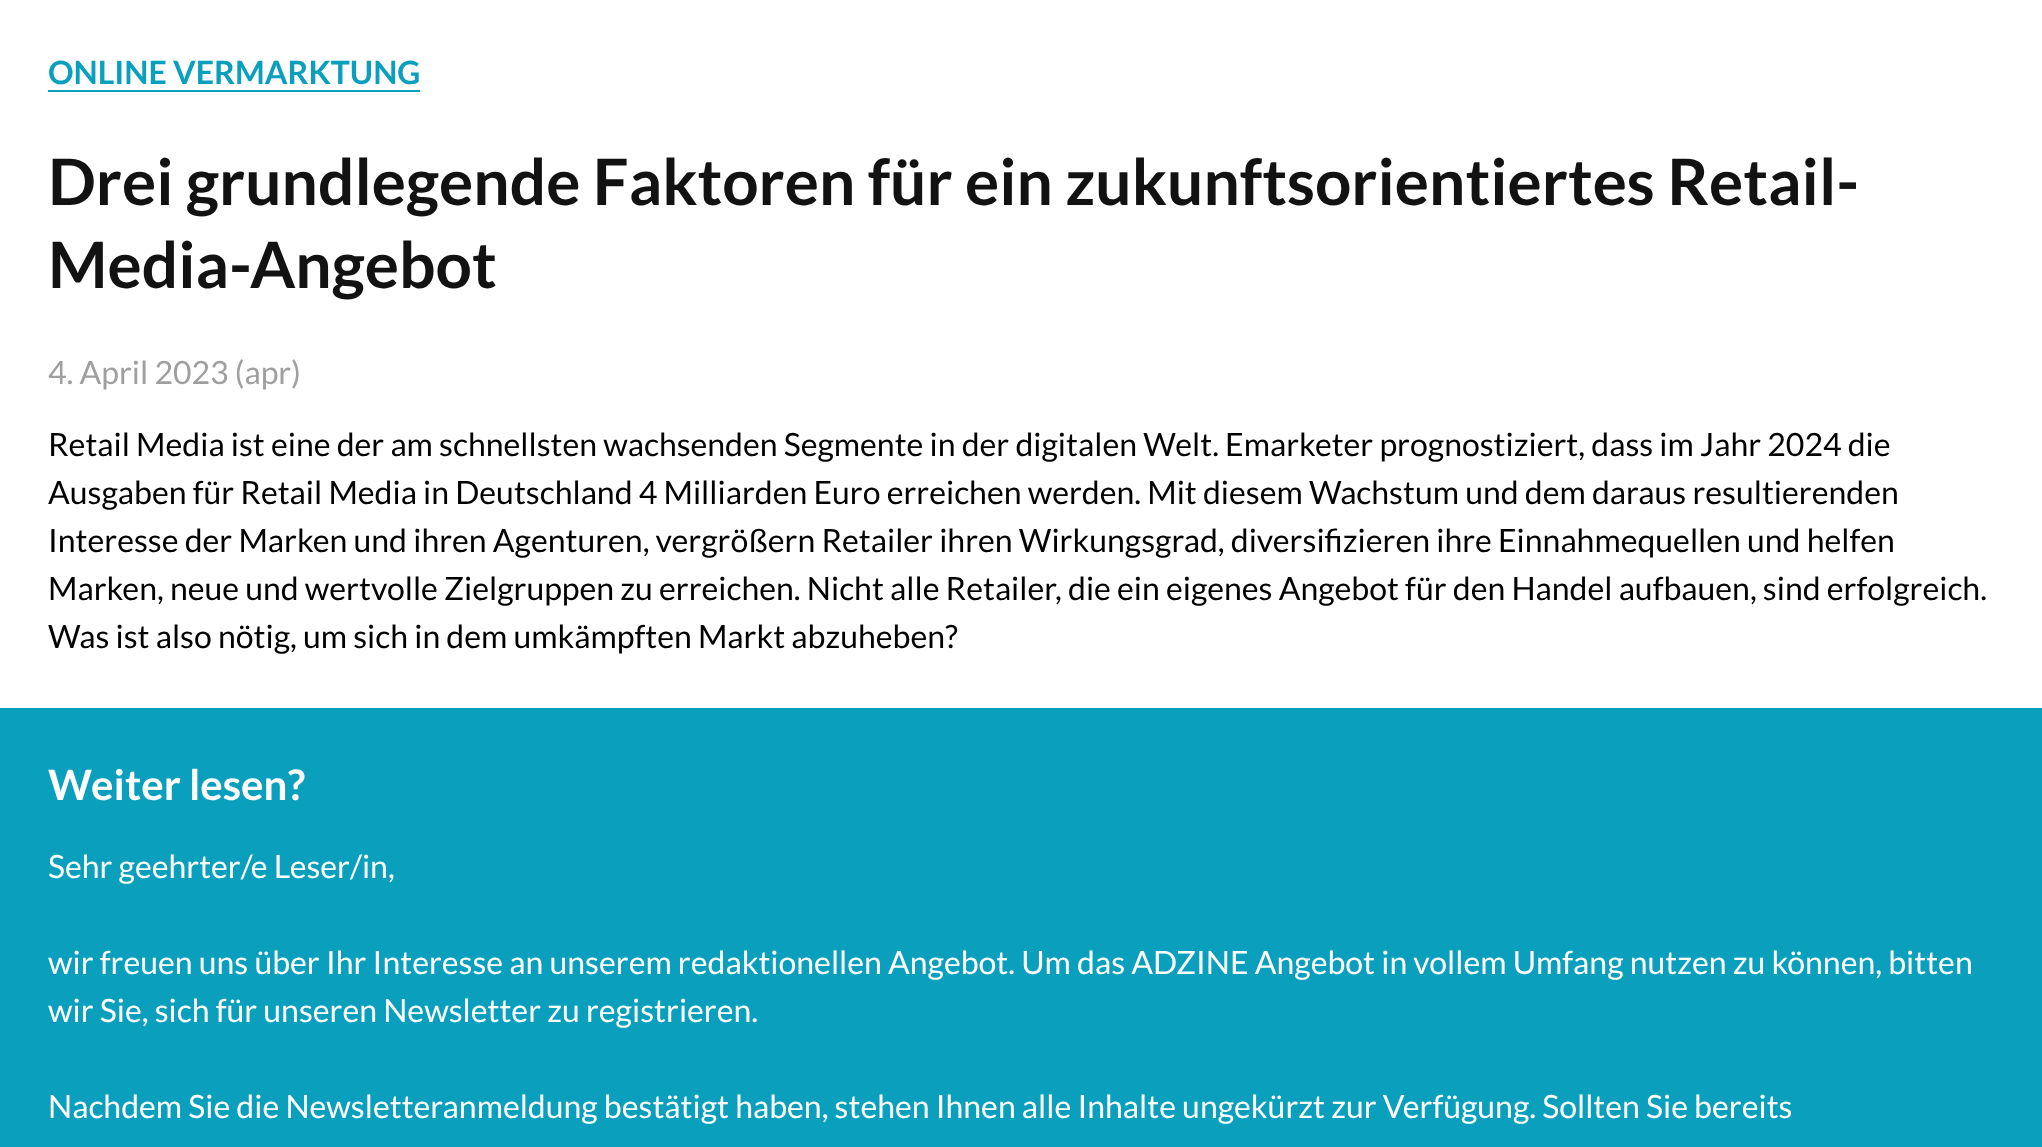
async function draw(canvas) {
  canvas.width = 2042
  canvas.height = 1147
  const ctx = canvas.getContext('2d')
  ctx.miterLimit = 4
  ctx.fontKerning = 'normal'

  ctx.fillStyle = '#fff'
  ctx.fillRect(0, 0, 2042, 1147)
  ctx.font = 'bold 32px Lato'
  ctx.fillStyle = '#0aa0bd'
  ctx.fillText('ONLINE VERMARKTUNG', 48, 84)
  ctx.fillRect(48, 90, 372, 2)
  ctx.font = 'bold 64px Lato'
  ctx.fillStyle = '#121212'
  ctx.fillText('Drei grundlegende Faktoren für ein zukunftsorientiertes Retail-', 48, 205)
  ctx.fillText('Media-Angebot', 48, 288)
  ctx.font = '32px Lato'
  ctx.fillStyle = '#9f9f9f'
  ctx.fillText('4. April 2023 (apr)', 48, 384)
  ctx.fillStyle = '#000'
  ctx.fillText('Retail Media ist eine der am schnellsten wachsenden Segmente in der digitalen Welt. Emarketer prognostiziert, dass im Jahr 2024 die', 48, 456)
  ctx.fillText('Ausgaben für Retail Media in Deutschland 4 Milliarden Euro erreichen werden. Mit diesem Wachstum und dem daraus resultierenden', 48, 504)
  ctx.fillText('Interesse der Marken und ihren Agenturen, vergrößern Retailer ihren Wirkungsgrad, diversifizieren ihre Einnahmequellen und helfen', 48, 552)
  ctx.fillText('Marken, neue und wertvolle Zielgruppen zu erreichen. Nicht alle Retailer, die ein eigenes Angebot für den Handel aufbauen, sind erfolgreich.', 48, 600)
  ctx.fillText('Was ist also nötig, um sich in dem umkämpften Markt abzuheben?', 48, 648)
  ctx.fillStyle = '#0aa0bd'
  ctx.fillRect(0, 708, 2042, 439)
  ctx.font = 'bold 42px Lato'
  ctx.fillStyle = '#fff'
  ctx.fillText('Weiter lesen?', 48, 800)
  ctx.font = '32px Lato'
  ctx.fillText('Sehr geehrter/e Leser/in,', 48, 878)
  ctx.fillText('wir freuen uns über Ihr Interesse an unserem redaktionellen Angebot. Um das ADZINE Angebot in vollem Umfang nutzen zu können, bitten', 48, 974)
  ctx.fillText('wir Sie, sich für unseren Newsletter zu registrieren.', 48, 1022)
  ctx.fillText('Nachdem Sie die Newsletteranmeldung bestätigt haben, stehen Ihnen alle Inhalte ungekürzt zur Verfügung. Sollten Sie bereits', 48, 1118)
}

draw(document.querySelector('canvas'))
